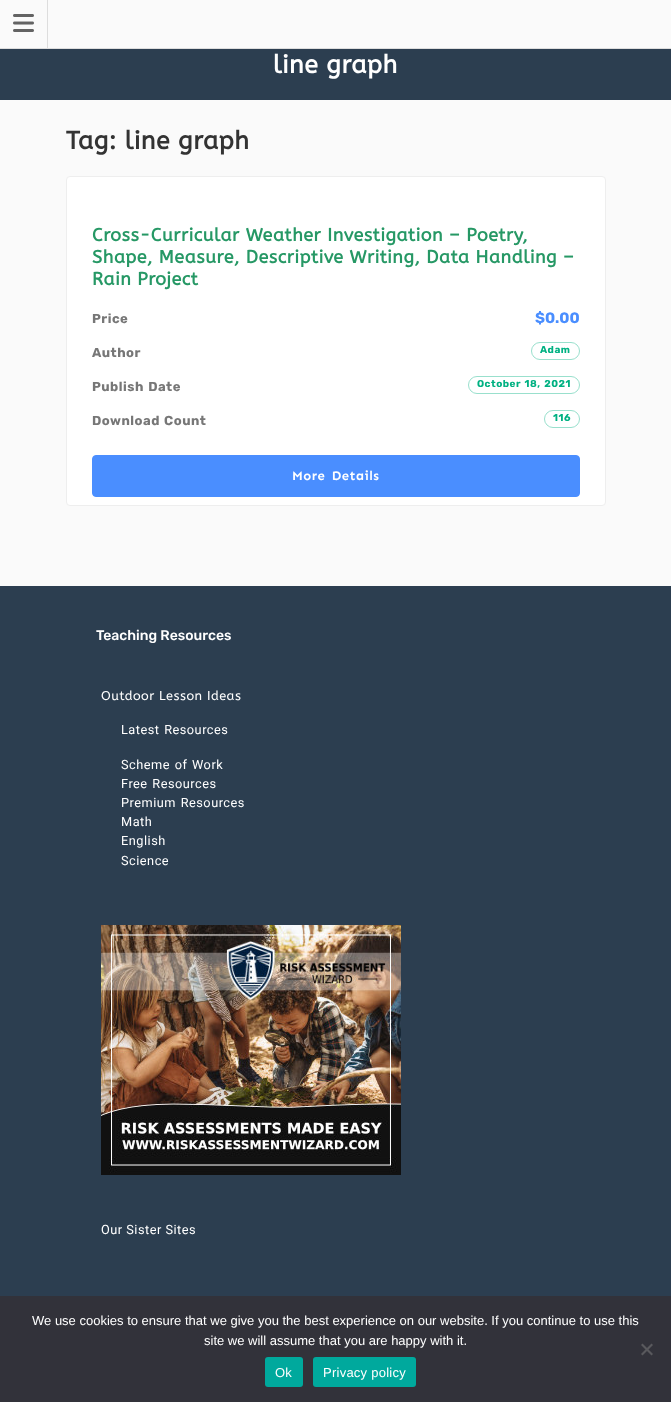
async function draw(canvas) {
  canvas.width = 671
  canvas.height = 1402
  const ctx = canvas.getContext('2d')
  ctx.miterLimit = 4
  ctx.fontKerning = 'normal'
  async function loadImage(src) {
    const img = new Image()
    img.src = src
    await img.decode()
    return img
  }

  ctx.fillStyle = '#fafafa'
  ctx.fillRect(0, 0, 671, 1402)
  ctx.fillStyle = '#ddd'
  ctx.fillRect(0, 48, 671, 1)
  ctx.fillRect(47, 0, 1, 48)
  ctx.drawImage(await loadImage('image0.png'), 13, 14, 21, 18)
  ctx.fillStyle = '#2c3e50'
  ctx.fillRect(0, 49, 671, 51)
  ctx.letterSpacing = '0.5px'
  ctx.font = 'bold 25px ABeeZee'
  ctx.fillStyle = '#fff'
  ctx.fillText('line graph', 273, 73)
  ctx.fillStyle = '#333'
  ctx.fillText('Tag: line graph', 66, 149)
  ctx.fillStyle = '#fff'
  ctx.beginPath()
  ctx.roundRect(66.5, 176.5, 539, 329, 3.5)
  ctx.fill()
  ctx.strokeStyle = '#eee'
  ctx.stroke()
  ctx.font = 'bold 18px ABeeZee'
  ctx.fillStyle = '#269865'
  ctx.fillText('Cross-Curricular Weather Investigation – Poetry,', 92, 241)
  ctx.fillText('Shape, Measure, Descriptive Writing, Data Handling –', 92, 263)
  ctx.fillText('Rain Project', 92, 285)
  ctx.font = 'bold 13px Rubik'
  ctx.fillStyle = '#777'
  ctx.fillText('Price', 92, 323)
  ctx.letterSpacing = '0px'
  ctx.font = 'bold 15px Rubik'
  ctx.fillStyle = '#4a8eff'
  ctx.fillText('$0.00', 535, 323)
  ctx.letterSpacing = '0.5px'
  ctx.font = 'bold 13px Rubik'
  ctx.fillStyle = '#777'
  ctx.fillText('Author', 92, 357)
  ctx.beginPath()
  ctx.roundRect(531.5, 342.5, 48, 17, 8.5)
  ctx.strokeStyle = '#99e0cd'
  ctx.stroke()
  ctx.font = 'bold 10px Rubik'
  ctx.fillStyle = '#00b182'
  ctx.fillText('Adam', 540, 353)
  ctx.wordSpacing = '1px'
  ctx.font = 'bold 13px Rubik'
  ctx.fillStyle = '#777'
  ctx.fillText('Publish Date', 92, 391)
  ctx.beginPath()
  ctx.roundRect(468.5, 376.5, 111, 17, 8.5)
  ctx.stroke()
  ctx.font = 'bold 10px Rubik'
  ctx.fillStyle = '#00b182'
  ctx.fillText('October 18, 2021', 477, 387)
  ctx.font = 'bold 13px Rubik'
  ctx.fillStyle = '#777'
  ctx.fillText('Download Count', 92, 425)
  ctx.beginPath()
  ctx.roundRect(544.5, 410.5, 35, 17, 8.5)
  ctx.stroke()
  ctx.wordSpacing = '0px'
  ctx.font = 'bold 10px Rubik'
  ctx.fillStyle = '#00b182'
  ctx.fillText('116', 553, 421)
  ctx.fillStyle = '#4a8eff'
  ctx.beginPath()
  ctx.roundRect(92.5, 455.5, 487, 41, 3.5)
  ctx.fill()
  ctx.strokeStyle = '#4a8eff'
  ctx.stroke()
  ctx.wordSpacing = '2px'
  ctx.font = 'bold 13px Sen'
  ctx.fillStyle = '#fff'
  ctx.fillText('More Details', 292, 480)
  ctx.fillStyle = '#2c3e50'
  ctx.fillRect(0, 586, 671, 710)
  ctx.letterSpacing = '0px'
  ctx.wordSpacing = '0px'
  ctx.font = '500 14px Rubik'
  ctx.fillStyle = '#fff'
  ctx.fillText('Teaching Resources', 96, 640)
  ctx.letterSpacing = '0.5px'
  ctx.font = '12.75px ABeeZee'
  ctx.fillText('Outdoor Lesson Ideas', 101, 700)
  ctx.wordSpacing = '1px'
  ctx.font = '12.75px Roboto'
  ctx.fillText('Latest Resources', 121, 734)
  ctx.fillText('Scheme of Work', 121, 769)
  ctx.fillText('Free Resources', 121, 788)
  ctx.fillText('Premium Resources', 121, 807)
  ctx.wordSpacing = '0px'
  ctx.fillText('Math', 121, 826)
  ctx.fillText('English', 121, 845)
  ctx.fillText('Science', 121, 865)
  ctx.drawImage(await loadImage('image1.png'), 101, 925, 300, 250)
  ctx.fillText('Our Sister Sites', 101, 1234)
  ctx.fillStyle = '#32323a'
  ctx.fillRect(0, 1296, 671, 106)
  ctx.letterSpacing = '0px'
  ctx.font = '13px Liberation Sans'
  ctx.fillStyle = '#fff'
  ctx.fillText('We use cookies to ensure that we give you the best experience on our website. If you continue to use this', 32, 1325)
  ctx.fillText('site we will assume that you are happy with it.', 204, 1345)
  ctx.fillStyle = '#59595d'
  ctx.beginPath()
  ctx.moveTo(651.5, 1343.5)
  ctx.lineTo(653, 1345)
  ctx.lineTo(642.5, 1355.5)
  ctx.lineTo(641, 1354)
  ctx.closePath()
  ctx.fill()
  ctx.beginPath()
  ctx.moveTo(641, 1345)
  ctx.lineTo(642.5, 1343.5)
  ctx.lineTo(653, 1354)
  ctx.lineTo(651.5, 1355.5)
  ctx.closePath()
  ctx.fill()
  ctx.fillStyle = '#00a99d'
  ctx.beginPath()
  ctx.roundRect(265, 1357, 38, 30, 3)
  ctx.fill()
  ctx.letterSpacing = '0.25px'
  ctx.fillStyle = '#fff'
  ctx.fillText('Ok', 275, 1377)
  ctx.fillStyle = '#00a99d'
  ctx.beginPath()
  ctx.roundRect(313, 1357, 103, 30, 3)
  ctx.fill()
  ctx.fillStyle = '#fff'
  ctx.fillText('Privacy policy', 323, 1377)
}

draw(document.querySelector('canvas'))
